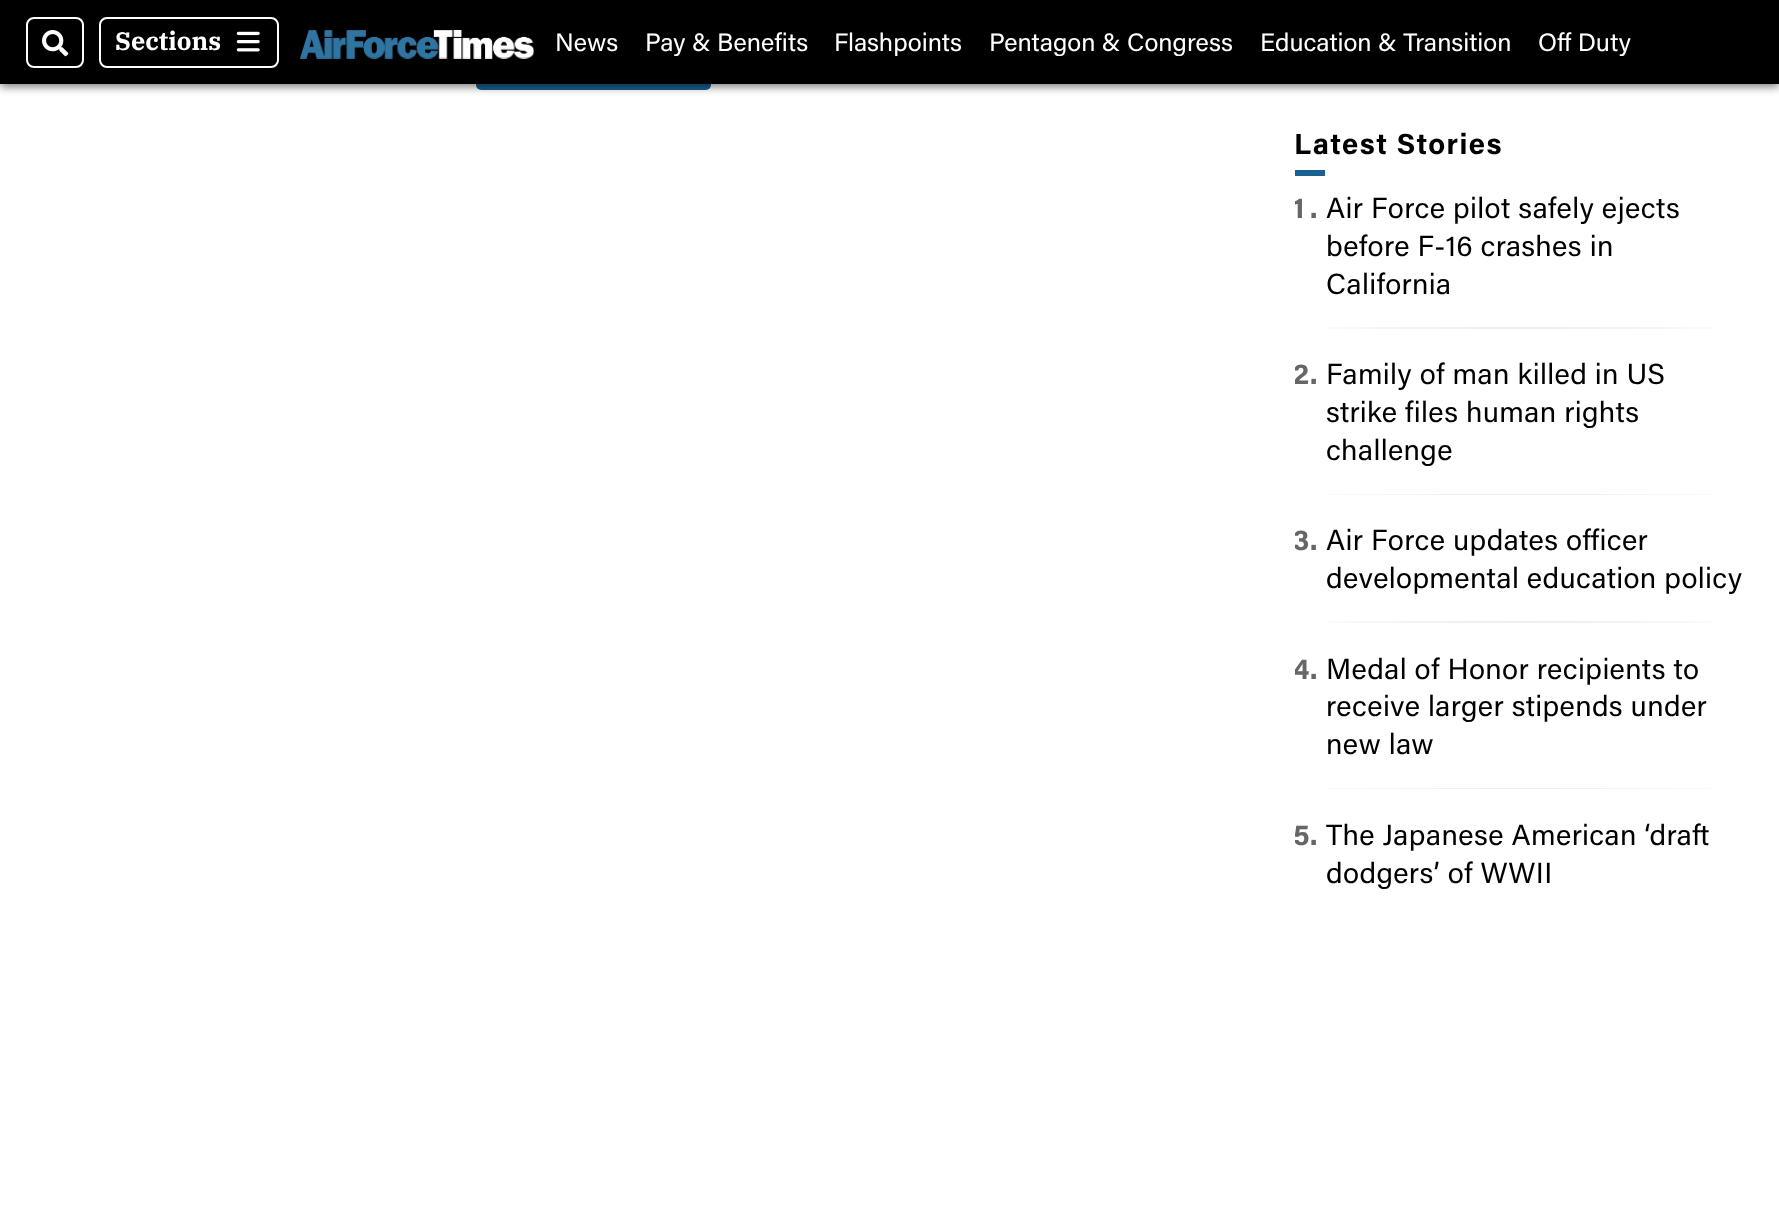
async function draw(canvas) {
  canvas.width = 1779
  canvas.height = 1216
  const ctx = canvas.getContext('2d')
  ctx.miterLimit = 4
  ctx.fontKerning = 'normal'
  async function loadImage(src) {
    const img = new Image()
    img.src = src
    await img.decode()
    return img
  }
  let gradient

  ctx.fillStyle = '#fff'
  ctx.fillRect(0, 0, 1779, 1216)
  ctx.fillStyle = '#186091'
  ctx.beginPath()
  ctx.roundRect(476, 41, 235, 49, 5)
  ctx.fill()
  ctx.fillStyle = '#00000080'
  ctx.filter = 'blur(4.5px)'
  ctx.beginPath()
  ctx.rect(0, 3, 1779, 84)
  ctx.fill()
  ctx.filter = 'none'
  ctx.fillStyle = '#000'
  ctx.fillRect(0, 0, 1779, 84)
  ctx.beginPath()
  ctx.roundRect(27, 18, 56, 49, 7)
  ctx.strokeStyle = '#fff'
  ctx.lineWidth = 2
  ctx.stroke()
  ctx.drawImage(await loadImage('image0.png'), 42, 30, 27, 27)
  ctx.beginPath()
  ctx.roundRect(100, 18, 178, 49, 7)
  ctx.stroke()
  ctx.font = 'bold 25.25px IBM Plex Serif'
  ctx.fillStyle = '#fff'
  ctx.fillText('Sections', 115, 50)
  ctx.drawImage(await loadImage('image1.png'), 236, 31, 24, 21)
  ctx.drawImage(await loadImage('image2.png'), 300, 30, 234, 29)
  ctx.font = '25.25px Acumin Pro'
  ctx.fillText('News', 555, 51)
  ctx.save()
  ctx.beginPath()
  ctx.rect(555, 29, 1176, 27)
  ctx.clip()
  ctx.fillText('Pay & Benefits', 645, 51)
  ctx.restore()
  ctx.fillText('Flashpoints', 834, 51)
  ctx.save()
  ctx.beginPath()
  ctx.rect(555, 29, 1176, 27)
  ctx.clip()
  ctx.fillText('Pentagon & Congress', 989, 51)
  ctx.restore()
  ctx.fillText('Education & Transition', 1260, 51)
  ctx.save()
  ctx.beginPath()
  ctx.rect(555, 29, 1176, 27)
  ctx.clip()
  ctx.fillText('Off Duty', 1538, 51)
  ctx.restore()
  ctx.letterSpacing = '1.5px'
  ctx.font = 'bold 29.1px Acumin Pro'
  ctx.fillStyle = '#000'
  ctx.fillText('Latest Stories', 1294, 154)
  ctx.fillStyle = '#186091'
  ctx.fillRect(1295, 170, 30, 6)
  ctx.save()
  ctx.beginPath()
  ctx.rect(1295, 188, 450, 703)
  ctx.clip()
  ctx.letterSpacing = '0.35px'
  ctx.fillStyle = '#666'
  ctx.fillText('1', 1293, 218)
  ctx.restore()
  ctx.letterSpacing = '0.35px'
  ctx.fillStyle = '#666'
  ctx.fillText('.', 1310, 218)
  ctx.font = '29.1px Acumin Pro'
  ctx.fillStyle = '#000'
  ctx.fillText('Air Force pilot safely ejects', 1326, 218)
  ctx.fillText('before F-16 crashes in', 1326, 256)
  ctx.fillText('California', 1326, 294)
  gradient = ctx.createRadialGradient(1519, 81403.64, 0, 1519, 81403.64, 273)
  gradient.addColorStop(0, '#e2e2e2')
  gradient.addColorStop(1, '#fff')
  ctx.fillStyle = gradient
  ctx.beginPath()
  ctx.rect(1326, 327, 386, 2)
  ctx.save()
  ctx.clip()
  ctx.scale(1, 1.1 / 273)
  ctx.fillRect(0, 0, 1779, 301790)
  ctx.restore()
  ctx.save()
  ctx.beginPath()
  ctx.rect(1295, 188, 450, 703)
  ctx.clip()
  ctx.font = 'bold 29.1px Acumin Pro'
  ctx.fillStyle = '#666'
  ctx.fillText('2', 1293, 384)
  ctx.restore()
  ctx.font = 'bold 29.1px Acumin Pro'
  ctx.fillStyle = '#666'
  ctx.fillText('.', 1310, 384)
  ctx.font = '29.1px Acumin Pro'
  ctx.fillStyle = '#000'
  ctx.fillText('Family of man killed in US', 1326, 384)
  ctx.fillText('strike files human rights', 1326, 422)
  ctx.fillText('challenge', 1326, 460)
  gradient = ctx.createRadialGradient(1519, 122601.82, 0, 1519, 122601.82, 273)
  gradient.addColorStop(0, '#e2e2e2')
  gradient.addColorStop(1, '#fff')
  ctx.fillStyle = gradient
  ctx.beginPath()
  ctx.rect(1326, 494, 386, 1)
  ctx.save()
  ctx.clip()
  ctx.scale(1, 1.1 / 273)
  ctx.fillRect(0, 0, 1779, 301790)
  ctx.restore()
  ctx.save()
  ctx.beginPath()
  ctx.rect(1295, 188, 450, 703)
  ctx.clip()
  ctx.font = 'bold 29.1px Acumin Pro'
  ctx.fillStyle = '#666'
  ctx.fillText('3', 1293, 550)
  ctx.restore()
  ctx.font = 'bold 29.1px Acumin Pro'
  ctx.fillStyle = '#666'
  ctx.fillText('.', 1310, 550)
  ctx.font = '29.1px Acumin Pro'
  ctx.fillStyle = '#000'
  ctx.fillText('Air Force updates officer', 1326, 550)
  ctx.fillText('developmental education policy', 1326, 588)
  gradient = ctx.createRadialGradient(1519, 154369.09, 0, 1519, 154369.09, 273)
  gradient.addColorStop(0, '#e2e2e2')
  gradient.addColorStop(1, '#fff')
  ctx.fillStyle = gradient
  ctx.beginPath()
  ctx.rect(1326, 621, 386, 2)
  ctx.save()
  ctx.clip()
  ctx.scale(1, 1.1 / 273)
  ctx.fillRect(0, 0, 1779, 301790)
  ctx.restore()
  ctx.save()
  ctx.beginPath()
  ctx.rect(1295, 188, 450, 703)
  ctx.clip()
  ctx.font = 'bold 29.1px Acumin Pro'
  ctx.fillStyle = '#666'
  ctx.fillText('4', 1293, 679)
  ctx.restore()
  ctx.font = 'bold 29.1px Acumin Pro'
  ctx.fillStyle = '#666'
  ctx.fillText('.', 1310, 679)
  ctx.font = '29.1px Acumin Pro'
  ctx.fillStyle = '#000'
  ctx.fillText('Medal of Honor recipients to', 1326, 679)
  ctx.fillText('receive larger stipends under', 1326, 716)
  ctx.fillText('new law', 1326, 754)
  gradient = ctx.createRadialGradient(1519, 195567.27, 0, 1519, 195567.27, 273)
  gradient.addColorStop(0, '#e2e2e2')
  gradient.addColorStop(1, '#fff')
  ctx.fillStyle = gradient
  ctx.beginPath()
  ctx.rect(1326, 788, 386, 1)
  ctx.save()
  ctx.clip()
  ctx.scale(1, 1.1 / 273)
  ctx.fillRect(0, 0, 1779, 301790)
  ctx.restore()
  ctx.save()
  ctx.beginPath()
  ctx.rect(1295, 188, 450, 703)
  ctx.clip()
  ctx.font = 'bold 29.1px Acumin Pro'
  ctx.fillStyle = '#666'
  ctx.fillText('5', 1293, 845)
  ctx.restore()
  ctx.font = 'bold 29.1px Acumin Pro'
  ctx.fillStyle = '#666'
  ctx.fillText('.', 1310, 845)
  ctx.save()
  ctx.beginPath()
  ctx.rect(1326, 815, 419, 76)
  ctx.clip()
  ctx.font = '29.1px Acumin Pro'
  ctx.fillStyle = '#000'
  ctx.fillText('The Japanese American ‘draft', 1326, 845)
  ctx.restore()
  ctx.font = '29.1px Acumin Pro'
  ctx.fillStyle = '#000'
  ctx.fillText('dodgers’ of WWII', 1326, 883)
}

draw(document.querySelector('canvas'))
